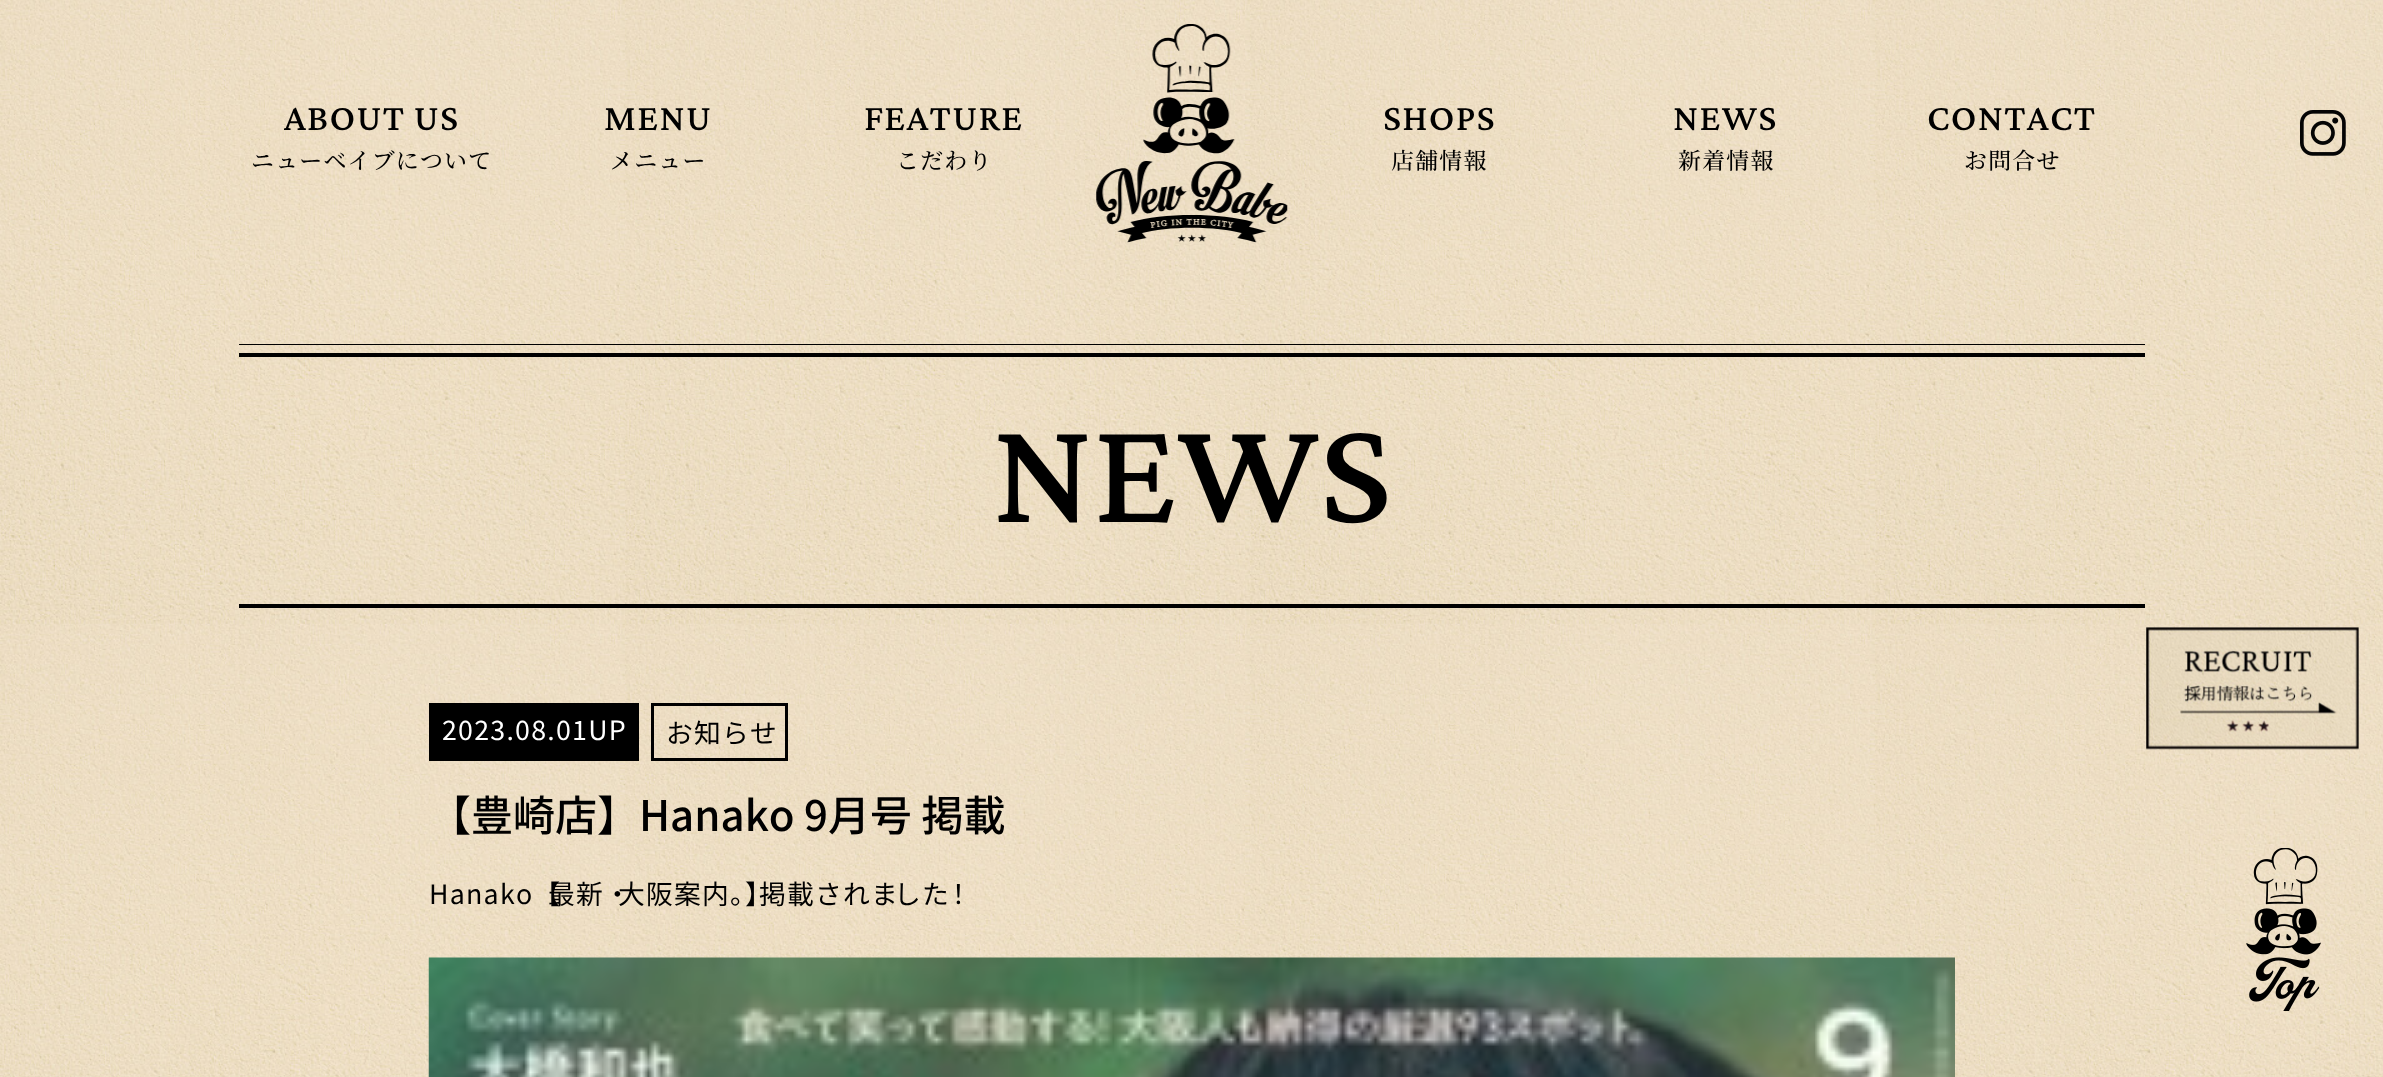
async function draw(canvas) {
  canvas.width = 2383
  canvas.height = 1077
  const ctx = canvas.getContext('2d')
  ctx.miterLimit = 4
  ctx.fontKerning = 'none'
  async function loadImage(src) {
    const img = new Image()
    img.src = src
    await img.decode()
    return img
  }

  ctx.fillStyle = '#fff'
  ctx.fillRect(0, 0, 2383, 1077)
  ctx.drawImage(await loadImage('image2.png'), 0, 0, 2383, 1077)
  ctx.letterSpacing = '1.25px'
  ctx.font = '500 38px Crimson Pro'
  ctx.fillStyle = '#000'
  ctx.fillText('ABOUT US', 284, 130)
  ctx.font = '200 22.9px Noto Serif JP'
  ctx.fillText('ニューベイブについて', 251, 169)
  ctx.font = '500 38px Crimson Pro'
  ctx.fillText('MENU', 604, 130)
  ctx.font = '200 22.9px Noto Serif JP'
  ctx.fillText('メニュー', 610, 169)
  ctx.font = '500 38px Crimson Pro'
  ctx.fillText('FEATURE', 864, 130)
  ctx.font = '200 22.9px Noto Serif JP'
  ctx.fillText('こだわり', 896, 169)
  ctx.drawImage(await loadImage('image0.png'), 1096, 24, 192, 219)
  ctx.font = '500 38px Crimson Pro'
  ctx.fillText('SHOPS', 1383, 130)
  ctx.font = '200 22.9px Noto Serif JP'
  ctx.fillText('店舗情報', 1391, 169)
  ctx.font = '500 38px Crimson Pro'
  ctx.fillText('NEWS', 1673, 130)
  ctx.font = '200 22.9px Noto Serif JP'
  ctx.fillText('新着情報', 1678, 169)
  ctx.font = '500 38px Crimson Pro'
  ctx.fillText('CONTACT', 1927, 130)
  ctx.font = '200 22.9px Noto Serif JP'
  ctx.fillText('お問合せ', 1964, 169)
  ctx.drawImage(await loadImage('image1.png'), 2300, 110, 46, 46)
  ctx.fillRect(239, 344, 1906, 1)
  ctx.fillRect(239, 353, 1906, 4)
  ctx.letterSpacing = '0px'
  ctx.font = '500 152.5px Crimson Pro'
  ctx.fillText('NEWS', 992, 522)
  ctx.fillRect(239, 604, 1906, 4)
  ctx.fillRect(429, 703, 210, 58)
  ctx.letterSpacing = '1.25px'
  ctx.font = '26.75px Noto Sans JP'
  ctx.fillStyle = '#fff'
  ctx.fillText('2023.08.01UP', 442, 740)
  ctx.strokeStyle = '#000'
  ctx.lineWidth = 3
  ctx.strokeRect(652.5, 704.5, 134, 55)
  ctx.fillStyle = '#000'
  ctx.fillText('お知らせ', 666, 743)
  ctx.letterSpacing = '0px'
  ctx.font = '500 42px Noto Sans JP'
  ctx.fillText('【豊崎店】Hanako 9月号 掲載', 429, 831)
  ctx.letterSpacing = '1.25px'
  ctx.font = '26.75px Noto Sans JP'
  ctx.fillText('Hanako【', 429, 904)
  ctx.fillText('最新・', 548, 904)
  ctx.fillText('大阪案内。', 618, 904)
  ctx.fillText('】', 745, 904)
  ctx.fillText('掲載されま', 759, 904)
  ctx.fillText('した', 894, 904)
  ctx.fillText('！', 945, 904)
  ctx.drawImage(await loadImage('image3.png'), 428, 957, 1527, 120)
  ctx.drawImage(await loadImage('image4.png'), 2146, 627, 213, 123)
  ctx.drawImage(await loadImage('image5.png'), 2246, 848, 75, 163)
}

draw(document.querySelector('canvas'))
